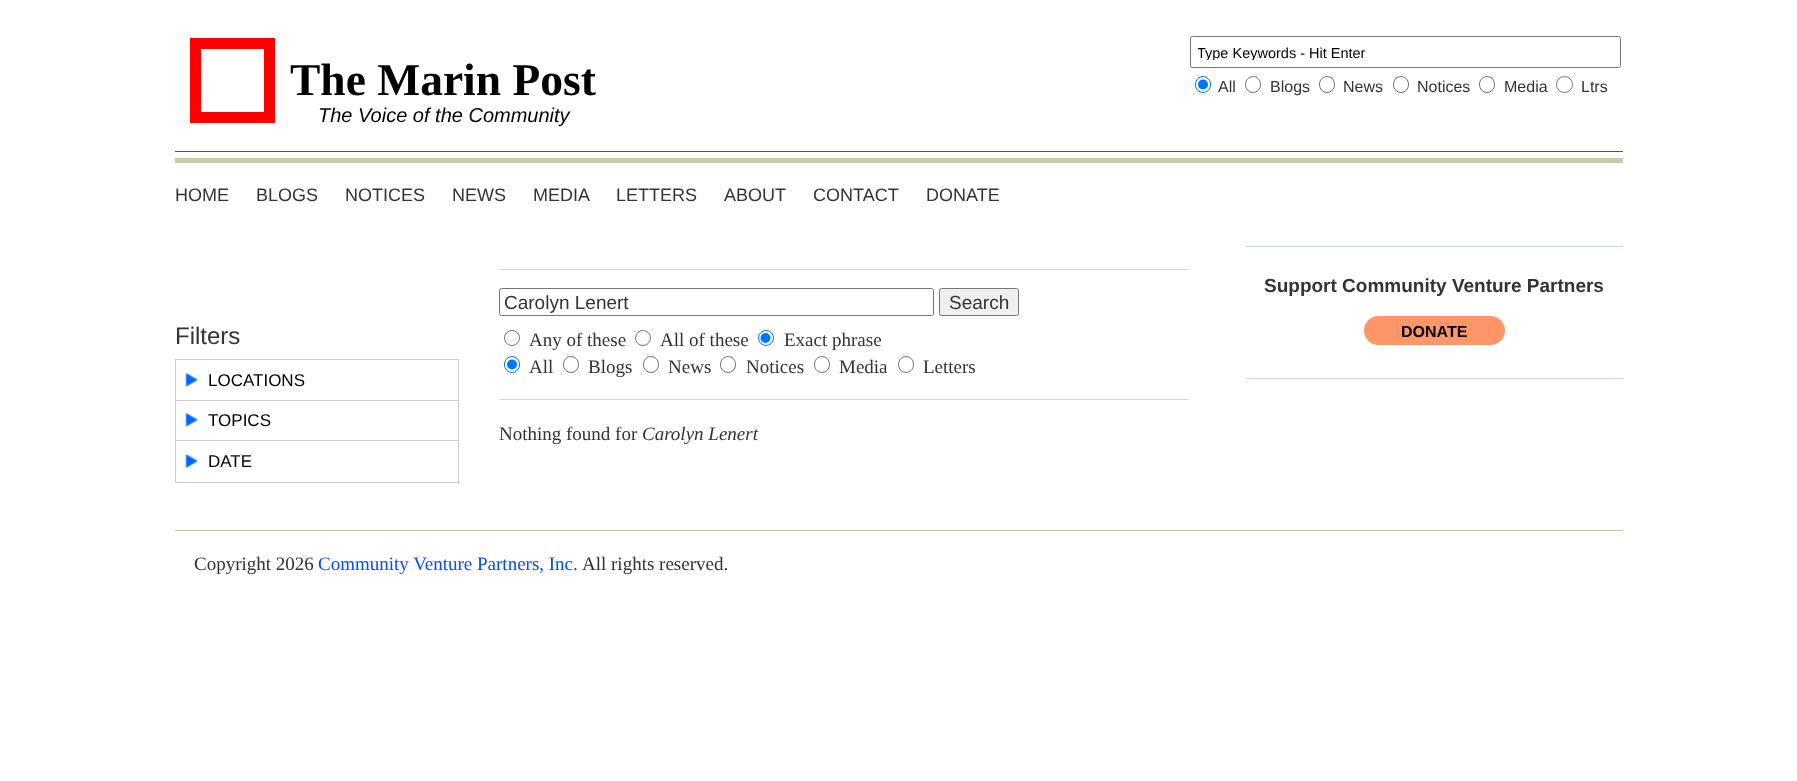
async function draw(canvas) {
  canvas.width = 1797
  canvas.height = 781
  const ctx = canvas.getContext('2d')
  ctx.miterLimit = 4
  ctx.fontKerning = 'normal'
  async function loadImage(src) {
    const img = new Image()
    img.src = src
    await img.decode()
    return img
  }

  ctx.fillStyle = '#fff'
  ctx.fillRect(0, 0, 1797, 781)
  ctx.fillStyle = '#cac8ad'
  ctx.fillRect(175, 158, 1448, 5)
  ctx.fillStyle = '#555'
  ctx.fillRect(175, 151, 1448, 1)
  ctx.strokeStyle = '#fe0000'
  ctx.lineWidth = 11
  ctx.strokeRect(195.5, 43.5, 74, 74)
  ctx.font = 'bold 45.5px Liberation Serif'
  ctx.fillStyle = '#000'
  ctx.fillText('The Marin Post', 290, 95)
  ctx.font = 'italic 20px Liberation Sans'
  ctx.fillText('The Voice of the Community', 318, 122)
  ctx.beginPath()
  ctx.roundRect(1190.5, 36.5, 430, 31, 2)
  ctx.strokeStyle = '#767676'
  ctx.lineWidth = 1
  ctx.stroke()
  ctx.save()
  ctx.beginPath()
  ctx.rect(1198, 44, 412, 16)
  ctx.clip()
  ctx.font = '14.5px Liberation Sans'
  ctx.fillText('Type Keywords - Hit Enter', 1197, 58)
  ctx.restore()
  ctx.beginPath()
  ctx.roundRect(1195.5, 76.5, 15, 16, 7.5)
  ctx.strokeStyle = '#0075ff'
  ctx.stroke()
  ctx.fillStyle = '#0075ff'
  ctx.beginPath()
  ctx.arc(1203, 84.5, 5, 0, 2 * Math.PI)
  ctx.fill()
  ctx.font = '16px Liberation Sans'
  ctx.fillStyle = '#333'
  ctx.fillText('All', 1218, 92)
  ctx.beginPath()
  ctx.roundRect(1245.5, 76.5, 15, 16, 7.5)
  ctx.strokeStyle = '#767676'
  ctx.stroke()
  ctx.fillText('Blogs', 1270, 92)
  ctx.beginPath()
  ctx.roundRect(1319.5, 76.5, 15, 16, 7.5)
  ctx.stroke()
  ctx.fillText('News', 1343, 92)
  ctx.beginPath()
  ctx.roundRect(1393.5, 76.5, 15, 16, 7.5)
  ctx.stroke()
  ctx.fillText('Notices', 1417, 92)
  ctx.beginPath()
  ctx.roundRect(1479.5, 76.5, 15, 16, 7.5)
  ctx.stroke()
  ctx.fillText('Media', 1504, 92)
  ctx.beginPath()
  ctx.arc(1564.5, 84.5, 8, 0, 2 * Math.PI)
  ctx.stroke()
  ctx.fillText('Ltrs', 1581, 92)
  ctx.font = '18px Liberation Sans'
  ctx.fillText('HOME', 175, 201)
  ctx.fillText('BLOGS', 256, 201)
  ctx.fillText('NOTICES', 345, 201)
  ctx.fillText('NEWS', 452, 201)
  ctx.fillText('MEDIA', 533, 201)
  ctx.fillText('LETTERS', 616, 201)
  ctx.fillText('ABOUT', 724, 201)
  ctx.fillText('CONTACT', 813, 201)
  ctx.fillText('DONATE', 926, 201)
  ctx.font = '24px Liberation Sans'
  ctx.fillText('Filters', 175, 344)
  ctx.drawImage(await loadImage('image0.png'), 185, 372, 13, 16)
  ctx.fillStyle = '#ccc'
  ctx.fillRect(175, 359, 284, 1)
  ctx.fillRect(458, 359, 1, 41)
  ctx.fillRect(175, 359, 1, 41)
  ctx.font = '17px Liberation Sans'
  ctx.fillStyle = '#000'
  ctx.fillText('LOCATIONS', 208, 386)
  ctx.drawImage(await loadImage('image0.png'), 185, 412, 13, 16)
  ctx.fillStyle = '#ccc'
  ctx.fillRect(175, 400, 284, 1)
  ctx.fillRect(458, 400, 1, 40)
  ctx.fillRect(175, 400, 1, 40)
  ctx.fillStyle = '#000'
  ctx.fillText('TOPICS', 208, 426)
  ctx.drawImage(await loadImage('image1.png'), 185, 453, 13, 16)
  ctx.strokeStyle = '#ccc'
  ctx.strokeRect(175.5, 440.5, 283, 42)
  ctx.fillText('DATE', 208, 467)
  ctx.fillStyle = '#c8d4e9'
  ctx.fillRect(499, 269, 690, 1)
  ctx.beginPath()
  ctx.roundRect(499.5, 288.5, 434, 27, 2)
  ctx.strokeStyle = '#767676'
  ctx.stroke()
  ctx.font = '19px Liberation Sans'
  ctx.fillStyle = '#333'
  ctx.fillText('Carolyn Lenert', 504, 309)
  ctx.fillStyle = '#efefef'
  ctx.beginPath()
  ctx.roundRect(939.5, 288.5, 79, 27, 2)
  ctx.fill()
  ctx.stroke()
  ctx.fillStyle = '#333'
  ctx.fillText('Search', 949, 309)
  ctx.beginPath()
  ctx.arc(512, 338, 7.5, 0, 2 * Math.PI)
  ctx.stroke()
  ctx.font = '19px Liberation Serif'
  ctx.fillText('Any of these', 529, 346)
  ctx.beginPath()
  ctx.arc(643, 338, 7.5, 0, 2 * Math.PI)
  ctx.stroke()
  ctx.fillText('All of these', 660, 346)
  ctx.beginPath()
  ctx.arc(766, 338, 7.5, 0, 2 * Math.PI)
  ctx.strokeStyle = '#0075ff'
  ctx.stroke()
  ctx.fillStyle = '#0075ff'
  ctx.beginPath()
  ctx.arc(765.5, 338, 5, 0, 2 * Math.PI)
  ctx.fill()
  ctx.fillStyle = '#333'
  ctx.fillText('Exact phrase', 784, 346)
  ctx.beginPath()
  ctx.roundRect(504.5, 356.5, 15, 16, 7.5)
  ctx.stroke()
  ctx.fillStyle = '#0075ff'
  ctx.beginPath()
  ctx.arc(512, 364.5, 5, 0, 2 * Math.PI)
  ctx.fill()
  ctx.fillStyle = '#333'
  ctx.fillText('All', 529, 373)
  ctx.beginPath()
  ctx.roundRect(563.5, 356.5, 15, 16, 7.5)
  ctx.strokeStyle = '#767676'
  ctx.stroke()
  ctx.fillText('Blogs', 588, 373)
  ctx.beginPath()
  ctx.roundRect(643.5, 356.5, 15, 16, 7.5)
  ctx.stroke()
  ctx.fillText('News', 668, 373)
  ctx.beginPath()
  ctx.roundRect(720.5, 356.5, 15, 16, 7.5)
  ctx.stroke()
  ctx.fillText('Notices', 746, 373)
  ctx.beginPath()
  ctx.roundRect(814.5, 356.5, 15, 16, 7.5)
  ctx.stroke()
  ctx.fillText('Media', 839, 373)
  ctx.beginPath()
  ctx.roundRect(898.5, 356.5, 15, 16, 7.5)
  ctx.stroke()
  ctx.fillText('Letters', 923, 373)
  ctx.fillStyle = '#c8d4e9'
  ctx.fillRect(499, 399, 690, 1)
  ctx.fillStyle = '#333'
  ctx.fillText('Nothing found for', 499, 440)
  ctx.font = 'italic 19px Liberation Serif'
  ctx.fillText('Carolyn Lenert', 642, 440)
  ctx.fillStyle = '#c8d4e9'
  ctx.fillRect(1246, 246, 377, 1)
  ctx.fillRect(1246, 378, 377, 1)
  ctx.font = 'bold 19px Liberation Sans'
  ctx.fillStyle = '#333'
  ctx.fillText('Support Community Venture Partners', 1264, 292)
  ctx.fillStyle = '#ff9669'
  ctx.beginPath()
  ctx.roundRect(1364, 316, 141, 29, 14.5)
  ctx.fill()
  ctx.font = 'bold 16px Liberation Sans'
  ctx.fillStyle = '#000'
  ctx.fillText('DONATE', 1401, 337)
  ctx.fillStyle = '#c9c8ac'
  ctx.fillRect(175, 530, 1448, 1)
  ctx.font = '19px Liberation Serif'
  ctx.fillStyle = '#333'
  ctx.fillText('Copyright 2026', 194, 570)
  ctx.fillStyle = '#004eff'
  ctx.fillText('Community Venture Partners, Inc.', 318, 570)
  ctx.fillStyle = '#333'
  ctx.fillText('All rights reserved.', 582, 570)
}

draw(document.querySelector('canvas'))
